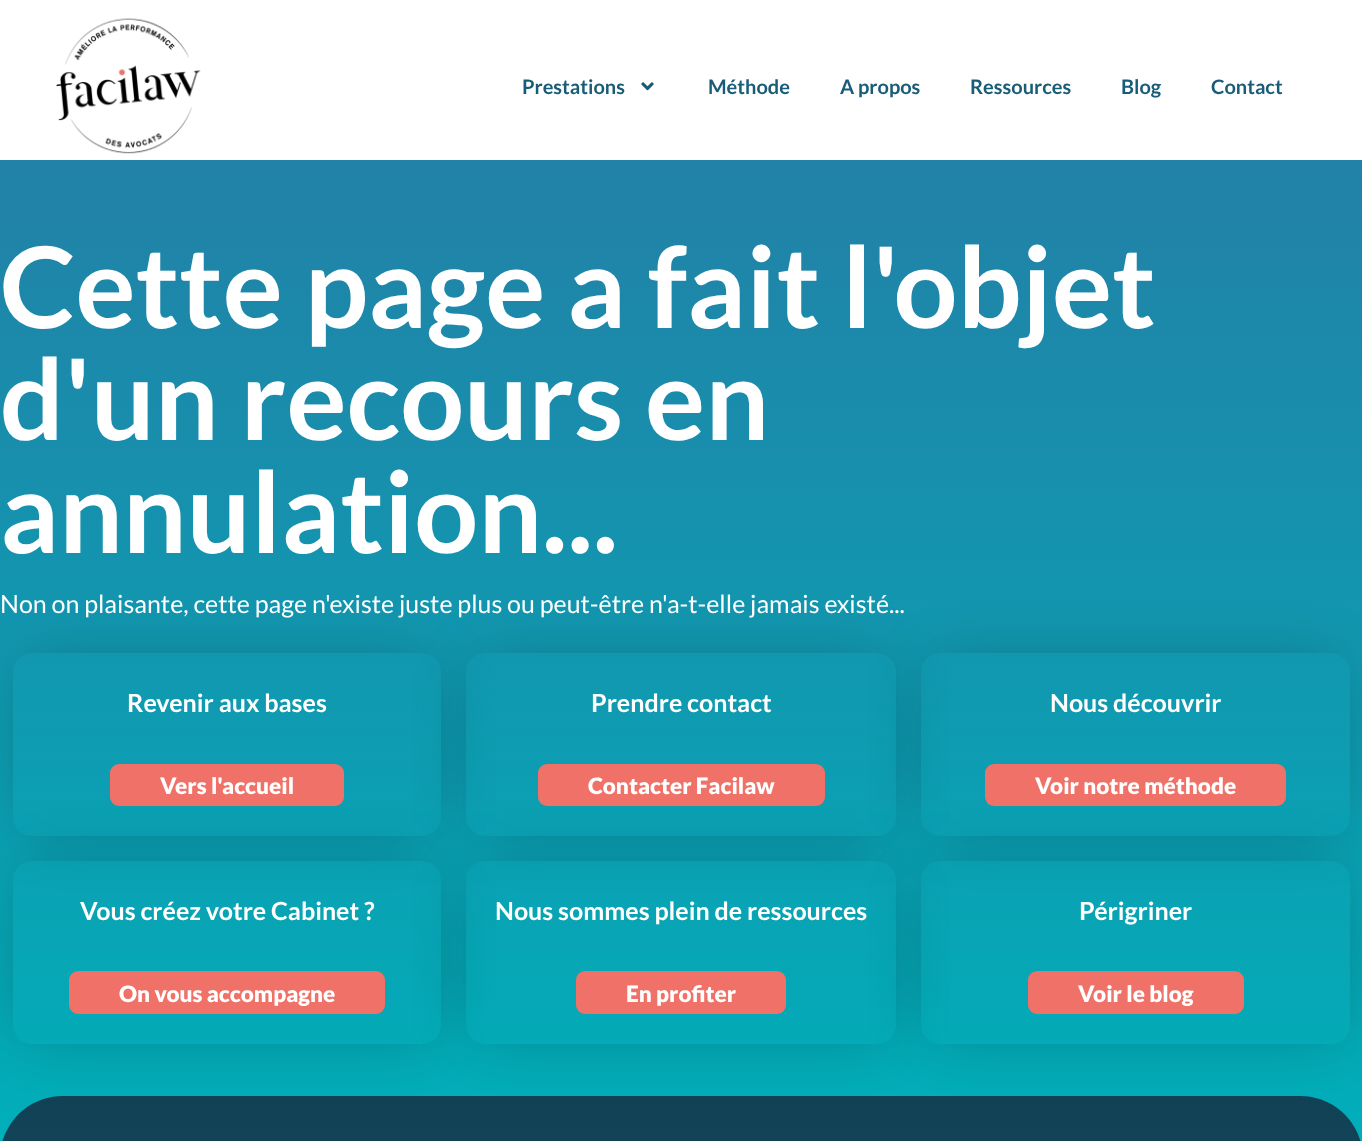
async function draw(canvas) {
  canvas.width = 1362
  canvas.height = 1141
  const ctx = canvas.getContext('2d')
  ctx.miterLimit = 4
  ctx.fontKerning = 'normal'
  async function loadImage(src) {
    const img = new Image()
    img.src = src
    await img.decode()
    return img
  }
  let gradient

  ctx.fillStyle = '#fff'
  ctx.fillRect(0, 0, 1362, 1141)
  ctx.drawImage(await loadImage('image0.png'), 56, 18, 145, 136)
  ctx.font = 'bold 20px Lato'
  ctx.fillStyle = '#185c77'
  ctx.fillText('Prestations', 522, 94)
  ctx.drawImage(await loadImage('image1.png'), 641, 82, 13, 9)
  ctx.fillText('Méthode', 708, 94)
  ctx.fillText('A propos', 840, 94)
  ctx.fillText('Ressources', 970, 94)
  ctx.fillText('Blog', 1121, 94)
  ctx.fillText('Contact', 1211, 94)
  gradient = ctx.createLinearGradient(681, 160, 681, 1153)
  gradient.addColorStop(0, '#2281a7')
  gradient.addColorStop(1, '#00afb9')
  ctx.fillStyle = gradient
  ctx.fillRect(0, 160, 1362, 981)
  ctx.font = 'bold 112.5px Lato'
  ctx.fillStyle = '#fff'
  ctx.fillText('Cette page a fait l\'objet', 0, 328)
  ctx.fillText('d\'un recours en', 0, 440)
  ctx.fillText('annulation...', 0, 553)
  ctx.font = '25px Lato'
  ctx.fillText('Non on plaisante, cette page n\'existe juste plus ou peut-être n\'a-t-elle jamais existé...', 0, 613)
  ctx.save()
  ctx.beginPath()
  ctx.moveTo(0, 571)
  ctx.lineTo(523, 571)
  ctx.lineTo(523, 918)
  ctx.lineTo(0, 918)
  ctx.closePath()
  ctx.moveTo(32, 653)
  ctx.lineTo(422, 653)
  ctx.bezierCurveTo(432.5, 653, 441, 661.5, 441, 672)
  ctx.lineTo(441, 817)
  ctx.bezierCurveTo(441, 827.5, 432.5, 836, 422, 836)
  ctx.lineTo(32, 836)
  ctx.bezierCurveTo(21.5, 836, 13, 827.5, 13, 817)
  ctx.lineTo(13, 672)
  ctx.bezierCurveTo(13, 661.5, 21.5, 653, 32, 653)
  ctx.closePath()
  ctx.clip('evenodd')
  ctx.fillStyle = '#00000040'
  ctx.filter = 'blur(31px)'
  ctx.beginPath()
  ctx.roundRect(25, 665, 404, 159, 6)
  ctx.fill()
  ctx.filter = 'none'
  ctx.restore()
  ctx.font = 'bold 25px Lato'
  ctx.fillText('Revenir aux bases', 127, 712)
  ctx.fillStyle = '#f07167'
  ctx.beginPath()
  ctx.roundRect(110, 764, 234, 42, 9)
  ctx.fill()
  ctx.font = '900 22.5px Lato'
  ctx.fillStyle = '#fff'
  ctx.fillText('Vers l\'accueil', 160, 794)
  ctx.save()
  ctx.beginPath()
  ctx.moveTo(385, 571)
  ctx.lineTo(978, 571)
  ctx.lineTo(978, 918)
  ctx.lineTo(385, 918)
  ctx.closePath()
  ctx.moveTo(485, 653)
  ctx.lineTo(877, 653)
  ctx.bezierCurveTo(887.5, 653, 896, 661.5, 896, 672)
  ctx.lineTo(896, 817)
  ctx.bezierCurveTo(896, 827.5, 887.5, 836, 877, 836)
  ctx.lineTo(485, 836)
  ctx.bezierCurveTo(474.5, 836, 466, 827.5, 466, 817)
  ctx.lineTo(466, 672)
  ctx.bezierCurveTo(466, 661.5, 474.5, 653, 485, 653)
  ctx.closePath()
  ctx.clip('evenodd')
  ctx.fillStyle = '#00000040'
  ctx.filter = 'blur(31px)'
  ctx.beginPath()
  ctx.roundRect(479, 665, 405, 159, 6)
  ctx.fill()
  ctx.filter = 'none'
  ctx.restore()
  ctx.font = 'bold 25px Lato'
  ctx.fillText('Prendre contact', 591, 712)
  ctx.fillStyle = '#f07167'
  ctx.beginPath()
  ctx.roundRect(538, 764, 287, 42, 9)
  ctx.fill()
  ctx.font = '900 22.5px Lato'
  ctx.fillStyle = '#fff'
  ctx.fillText('Contacter Facilaw', 588, 794)
  ctx.save()
  ctx.beginPath()
  ctx.moveTo(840, 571)
  ctx.lineTo(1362, 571)
  ctx.lineTo(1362, 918)
  ctx.lineTo(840, 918)
  ctx.closePath()
  ctx.moveTo(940, 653)
  ctx.lineTo(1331, 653)
  ctx.bezierCurveTo(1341.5, 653, 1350, 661.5, 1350, 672)
  ctx.lineTo(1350, 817)
  ctx.bezierCurveTo(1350, 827.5, 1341.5, 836, 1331, 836)
  ctx.lineTo(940, 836)
  ctx.bezierCurveTo(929.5, 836, 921, 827.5, 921, 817)
  ctx.lineTo(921, 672)
  ctx.bezierCurveTo(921, 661.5, 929.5, 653, 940, 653)
  ctx.closePath()
  ctx.clip('evenodd')
  ctx.fillStyle = '#00000040'
  ctx.filter = 'blur(31px)'
  ctx.beginPath()
  ctx.roundRect(934, 665, 404, 159, 6)
  ctx.fill()
  ctx.filter = 'none'
  ctx.restore()
  ctx.font = 'bold 25px Lato'
  ctx.fillText('Nous découvrir', 1050, 712)
  ctx.fillStyle = '#f07167'
  ctx.beginPath()
  ctx.roundRect(985, 764, 301, 42, 9)
  ctx.fill()
  ctx.font = '900 22.5px Lato'
  ctx.fillStyle = '#fff'
  ctx.fillText('Voir notre méthode', 1035, 794)
  ctx.save()
  ctx.beginPath()
  ctx.moveTo(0, 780)
  ctx.lineTo(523, 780)
  ctx.lineTo(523, 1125)
  ctx.lineTo(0, 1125)
  ctx.closePath()
  ctx.moveTo(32, 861)
  ctx.lineTo(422, 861)
  ctx.bezierCurveTo(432.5, 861, 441, 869.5, 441, 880)
  ctx.lineTo(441, 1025)
  ctx.bezierCurveTo(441, 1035.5, 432.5, 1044, 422, 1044)
  ctx.lineTo(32, 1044)
  ctx.bezierCurveTo(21.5, 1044, 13, 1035.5, 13, 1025)
  ctx.lineTo(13, 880)
  ctx.bezierCurveTo(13, 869.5, 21.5, 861, 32, 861)
  ctx.closePath()
  ctx.clip('evenodd')
  ctx.fillStyle = '#00000040'
  ctx.filter = 'blur(31px)'
  ctx.beginPath()
  ctx.roundRect(25, 874, 404, 157, 6)
  ctx.fill()
  ctx.filter = 'none'
  ctx.restore()
  ctx.font = 'bold 25px Lato'
  ctx.fillText('Vous créez votre Cabinet ?', 80, 920)
  ctx.fillStyle = '#f07167'
  ctx.beginPath()
  ctx.roundRect(69, 971, 316, 43, 9)
  ctx.fill()
  ctx.font = '900 22.5px Lato'
  ctx.fillStyle = '#fff'
  ctx.fillText('On vous accompagne', 119, 1002)
  ctx.save()
  ctx.beginPath()
  ctx.moveTo(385, 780)
  ctx.lineTo(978, 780)
  ctx.lineTo(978, 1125)
  ctx.lineTo(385, 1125)
  ctx.closePath()
  ctx.moveTo(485, 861)
  ctx.lineTo(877, 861)
  ctx.bezierCurveTo(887.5, 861, 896, 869.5, 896, 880)
  ctx.lineTo(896, 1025)
  ctx.bezierCurveTo(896, 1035.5, 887.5, 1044, 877, 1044)
  ctx.lineTo(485, 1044)
  ctx.bezierCurveTo(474.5, 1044, 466, 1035.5, 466, 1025)
  ctx.lineTo(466, 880)
  ctx.bezierCurveTo(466, 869.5, 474.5, 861, 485, 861)
  ctx.closePath()
  ctx.clip('evenodd')
  ctx.fillStyle = '#00000040'
  ctx.filter = 'blur(31px)'
  ctx.beginPath()
  ctx.roundRect(479, 874, 405, 157, 6)
  ctx.fill()
  ctx.filter = 'none'
  ctx.restore()
  ctx.font = 'bold 25px Lato'
  ctx.fillText('Nous sommes plein de ressources', 495, 920)
  ctx.fillStyle = '#f07167'
  ctx.beginPath()
  ctx.roundRect(576, 971, 210, 43, 9)
  ctx.fill()
  ctx.font = '900 22.5px Lato'
  ctx.fillStyle = '#fff'
  ctx.fillText('En profiter', 626, 1002)
  ctx.save()
  ctx.beginPath()
  ctx.moveTo(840, 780)
  ctx.lineTo(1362, 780)
  ctx.lineTo(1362, 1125)
  ctx.lineTo(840, 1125)
  ctx.closePath()
  ctx.moveTo(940, 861)
  ctx.lineTo(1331, 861)
  ctx.bezierCurveTo(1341.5, 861, 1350, 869.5, 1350, 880)
  ctx.lineTo(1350, 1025)
  ctx.bezierCurveTo(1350, 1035.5, 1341.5, 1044, 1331, 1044)
  ctx.lineTo(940, 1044)
  ctx.bezierCurveTo(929.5, 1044, 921, 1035.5, 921, 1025)
  ctx.lineTo(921, 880)
  ctx.bezierCurveTo(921, 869.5, 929.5, 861, 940, 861)
  ctx.closePath()
  ctx.clip('evenodd')
  ctx.fillStyle = '#00000040'
  ctx.filter = 'blur(31px)'
  ctx.beginPath()
  ctx.roundRect(934, 874, 404, 157, 6)
  ctx.fill()
  ctx.filter = 'none'
  ctx.restore()
  ctx.font = 'bold 25px Lato'
  ctx.fillText('Périgriner', 1079, 920)
  ctx.fillStyle = '#f07167'
  ctx.beginPath()
  ctx.roundRect(1028, 971, 216, 43, 9)
  ctx.fill()
  ctx.font = '900 22.5px Lato'
  ctx.fillStyle = '#fff'
  ctx.fillText('Voir le blog', 1078, 1002)
  gradient = ctx.createLinearGradient(681, 1096, 681, 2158)
  gradient.addColorStop(0, '#114154')
  gradient.addColorStop(1, '#1c6987')
  ctx.fillStyle = gradient
  ctx.beginPath()
  ctx.moveTo(63, 1096)
  ctx.lineTo(1300, 1096)
  ctx.bezierCurveTo(1335, 1096, 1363, 1124, 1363, 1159)
  ctx.lineTo(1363, 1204)
  ctx.lineTo(0, 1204)
  ctx.lineTo(0, 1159)
  ctx.bezierCurveTo(0, 1124, 28, 1096, 63, 1096)
  ctx.closePath()
  ctx.fill()
}

draw(document.querySelector('canvas'))
